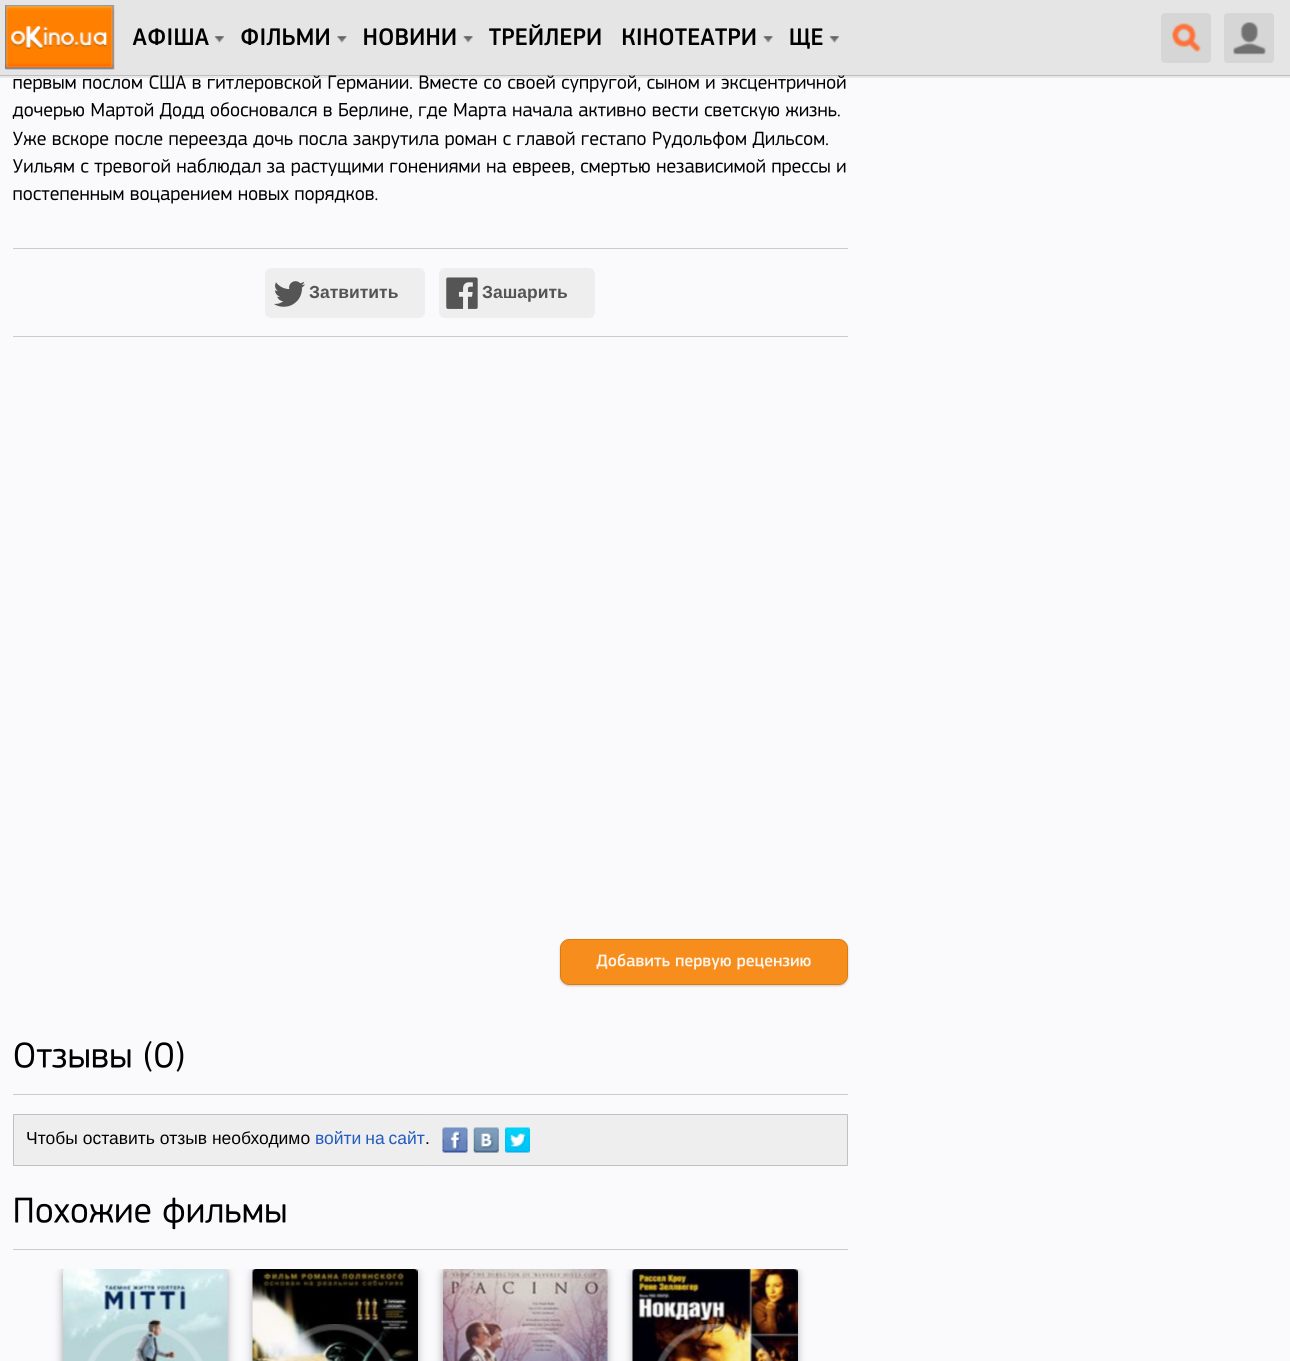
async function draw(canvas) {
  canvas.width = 1290
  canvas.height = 1361
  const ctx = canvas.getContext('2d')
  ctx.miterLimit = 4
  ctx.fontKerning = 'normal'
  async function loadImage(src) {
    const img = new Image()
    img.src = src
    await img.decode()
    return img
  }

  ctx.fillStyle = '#fafafc'
  ctx.fillRect(0, 0, 1290, 1361)
  ctx.drawImage(await loadImage('image12.png'), 13, 75, 833, 18)
  ctx.fillStyle = '#00000012'
  ctx.fillRect(0, 75, 1290, 3)
  ctx.fillStyle = '#0000002e'
  ctx.fillRect(0, 75, 1290, 1)
  ctx.fillStyle = '#e5e5e5'
  ctx.fillRect(0, 0, 1290, 75)
  ctx.drawImage(await loadImage('image0.png'), 5, 5, 110, 65)
  ctx.drawImage(await loadImage('image1.png'), 214, 36, 10, 7)
  ctx.drawImage(await loadImage('image2.png'), 132, 28, 77, 17)
  ctx.drawImage(await loadImage('image3.png'), 337, 36, 10, 7)
  ctx.drawImage(await loadImage('image4.png'), 241, 28, 88, 18)
  ctx.drawImage(await loadImage('image5.png'), 463, 36, 10, 7)
  ctx.drawImage(await loadImage('image6.png'), 364, 28, 92, 18)
  ctx.drawImage(await loadImage('image7.png'), 489, 24, 112, 22)
  ctx.drawImage(await loadImage('image5.png'), 763, 36, 10, 7)
  ctx.drawImage(await loadImage('image8.png'), 622, 28, 134, 18)
  ctx.drawImage(await loadImage('image1.png'), 829, 36, 10, 7)
  ctx.drawImage(await loadImage('image9.png'), 790, 28, 33, 21)
  ctx.fillStyle = '#d6d6d7'
  ctx.beginPath()
  ctx.roundRect(1161.5, 13.5, 49, 49, 3.5)
  ctx.fill()
  ctx.strokeStyle = '#d6d6d7'
  ctx.stroke()
  ctx.drawImage(await loadImage('image10.png'), 1172, 23, 29, 29)
  ctx.beginPath()
  ctx.roundRect(1224, 13, 50, 50, 4)
  ctx.fill()
  ctx.drawImage(await loadImage('image11.png'), 1233, 22, 33, 33)
  ctx.drawImage(await loadImage('image13.png'), 12, 102, 828, 18)
  ctx.drawImage(await loadImage('image14.png'), 13, 131, 815, 18)
  ctx.drawImage(await loadImage('image15.png'), 13, 158, 833, 18)
  ctx.drawImage(await loadImage('image16.png'), 13, 190, 365, 14)
  ctx.fillStyle = '#ccc'
  ctx.fillRect(13, 248, 835, 1)
  ctx.fillRect(13, 336, 835, 1)
  ctx.fillStyle = '#eee'
  ctx.beginPath()
  ctx.roundRect(265, 268, 160, 50, 6)
  ctx.fill()
  ctx.drawImage(await loadImage('image17.png'), 274, 281, 31, 26)
  ctx.font = 'bold 17.5px Liberation Sans'
  ctx.fillStyle = '#555'
  ctx.fillText('Затвитить', 309, 298)
  ctx.fillStyle = '#eee'
  ctx.beginPath()
  ctx.roundRect(439, 268, 156, 50, 6)
  ctx.fill()
  ctx.drawImage(await loadImage('image18.png'), 446, 277, 32, 32)
  ctx.fillStyle = '#555'
  ctx.fillText('Зашарить', 482, 298)
  ctx.fillStyle = '#00000033'
  ctx.filter = 'blur(1px)'
  ctx.beginPath()
  ctx.roundRect(560, 940, 288, 46, 9)
  ctx.fill()
  ctx.filter = 'none'
  ctx.fillStyle = '#f78d1d'
  ctx.beginPath()
  ctx.roundRect(560.5, 939.5, 287, 45, 8.5)
  ctx.fill()
  ctx.strokeStyle = '#da7c0c'
  ctx.stroke()
  ctx.drawImage(await loadImage('image19.png'), 596, 953, 215, 17)
  ctx.fillStyle = '#ccc'
  ctx.fillRect(13, 1094, 835, 1)
  ctx.drawImage(await loadImage('image20.png'), 14, 1041, 170, 31)
  ctx.fillStyle = '#eee'
  ctx.beginPath()
  ctx.rect(13.5, 1114.5, 834, 51)
  ctx.fill()
  ctx.strokeStyle = '#c0c0c0'
  ctx.stroke()
  ctx.font = '17.5px Liberation Sans'
  ctx.fillStyle = '#000'
  ctx.fillText('Чтобы оставить отзыв необходимо', 26, 1144)
  ctx.wordSpacing = '-1px'
  ctx.fillStyle = '#245dc1'
  ctx.fillText('войти на сайт', 315, 1144)
  ctx.wordSpacing = '0px'
  ctx.fillStyle = '#000'
  ctx.fillText('.', 425, 1144)
  ctx.drawImage(await loadImage('image21.png'), 442, 1127, 26, 26)
  ctx.drawImage(await loadImage('image22.png'), 473, 1127, 26, 26)
  ctx.drawImage(await loadImage('image23.png'), 505, 1127, 25, 26)
  ctx.fillStyle = '#ccc'
  ctx.fillRect(13, 1249, 835, 1)
  ctx.drawImage(await loadImage('image24.png'), 15, 1197, 271, 33)
  ctx.save()
  ctx.beginPath()
  ctx.rect(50, 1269, 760, 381)
  ctx.clip()
  ctx.fillStyle = '#01010173'
  ctx.filter = 'blur(5px)'
  ctx.beginPath()
  ctx.roundRect(64, 1270, 162, 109, 2.5)
  ctx.fill()
  ctx.filter = 'none'
  ctx.restore()
  ctx.drawImage(await loadImage('image25.png'), 63, 1269, 165, 92)
  ctx.drawImage(await loadImage('image26.png'), 87, 1324, 116, 37)
  ctx.save()
  ctx.beginPath()
  ctx.rect(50, 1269, 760, 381)
  ctx.clip()
  ctx.fillStyle = '#01010173'
  ctx.filter = 'blur(5px)'
  ctx.beginPath()
  ctx.roundRect(254, 1270, 162, 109, 2.5)
  ctx.fill()
  ctx.filter = 'none'
  ctx.restore()
  ctx.drawImage(await loadImage('image27.png'), 252, 1269, 166, 92)
  ctx.drawImage(await loadImage('image28.png'), 278, 1324, 115, 37)
  ctx.save()
  ctx.beginPath()
  ctx.rect(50, 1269, 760, 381)
  ctx.clip()
  ctx.fillStyle = '#01010173'
  ctx.filter = 'blur(5px)'
  ctx.beginPath()
  ctx.roundRect(444, 1270, 162, 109, 2.5)
  ctx.fill()
  ctx.filter = 'none'
  ctx.restore()
  ctx.drawImage(await loadImage('image29.png'), 443, 1269, 165, 92)
  ctx.drawImage(await loadImage('image30.png'), 468, 1326, 114, 35)
  ctx.save()
  ctx.beginPath()
  ctx.rect(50, 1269, 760, 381)
  ctx.clip()
  ctx.fillStyle = '#01010173'
  ctx.filter = 'blur(5px)'
  ctx.beginPath()
  ctx.roundRect(634, 1270, 162, 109, 2.5)
  ctx.fill()
  ctx.filter = 'none'
  ctx.restore()
  ctx.drawImage(await loadImage('image31.png'), 632, 1269, 166, 92)
  ctx.drawImage(await loadImage('image32.png'), 657, 1324, 116, 37)
}

draw(document.querySelector('canvas'))
